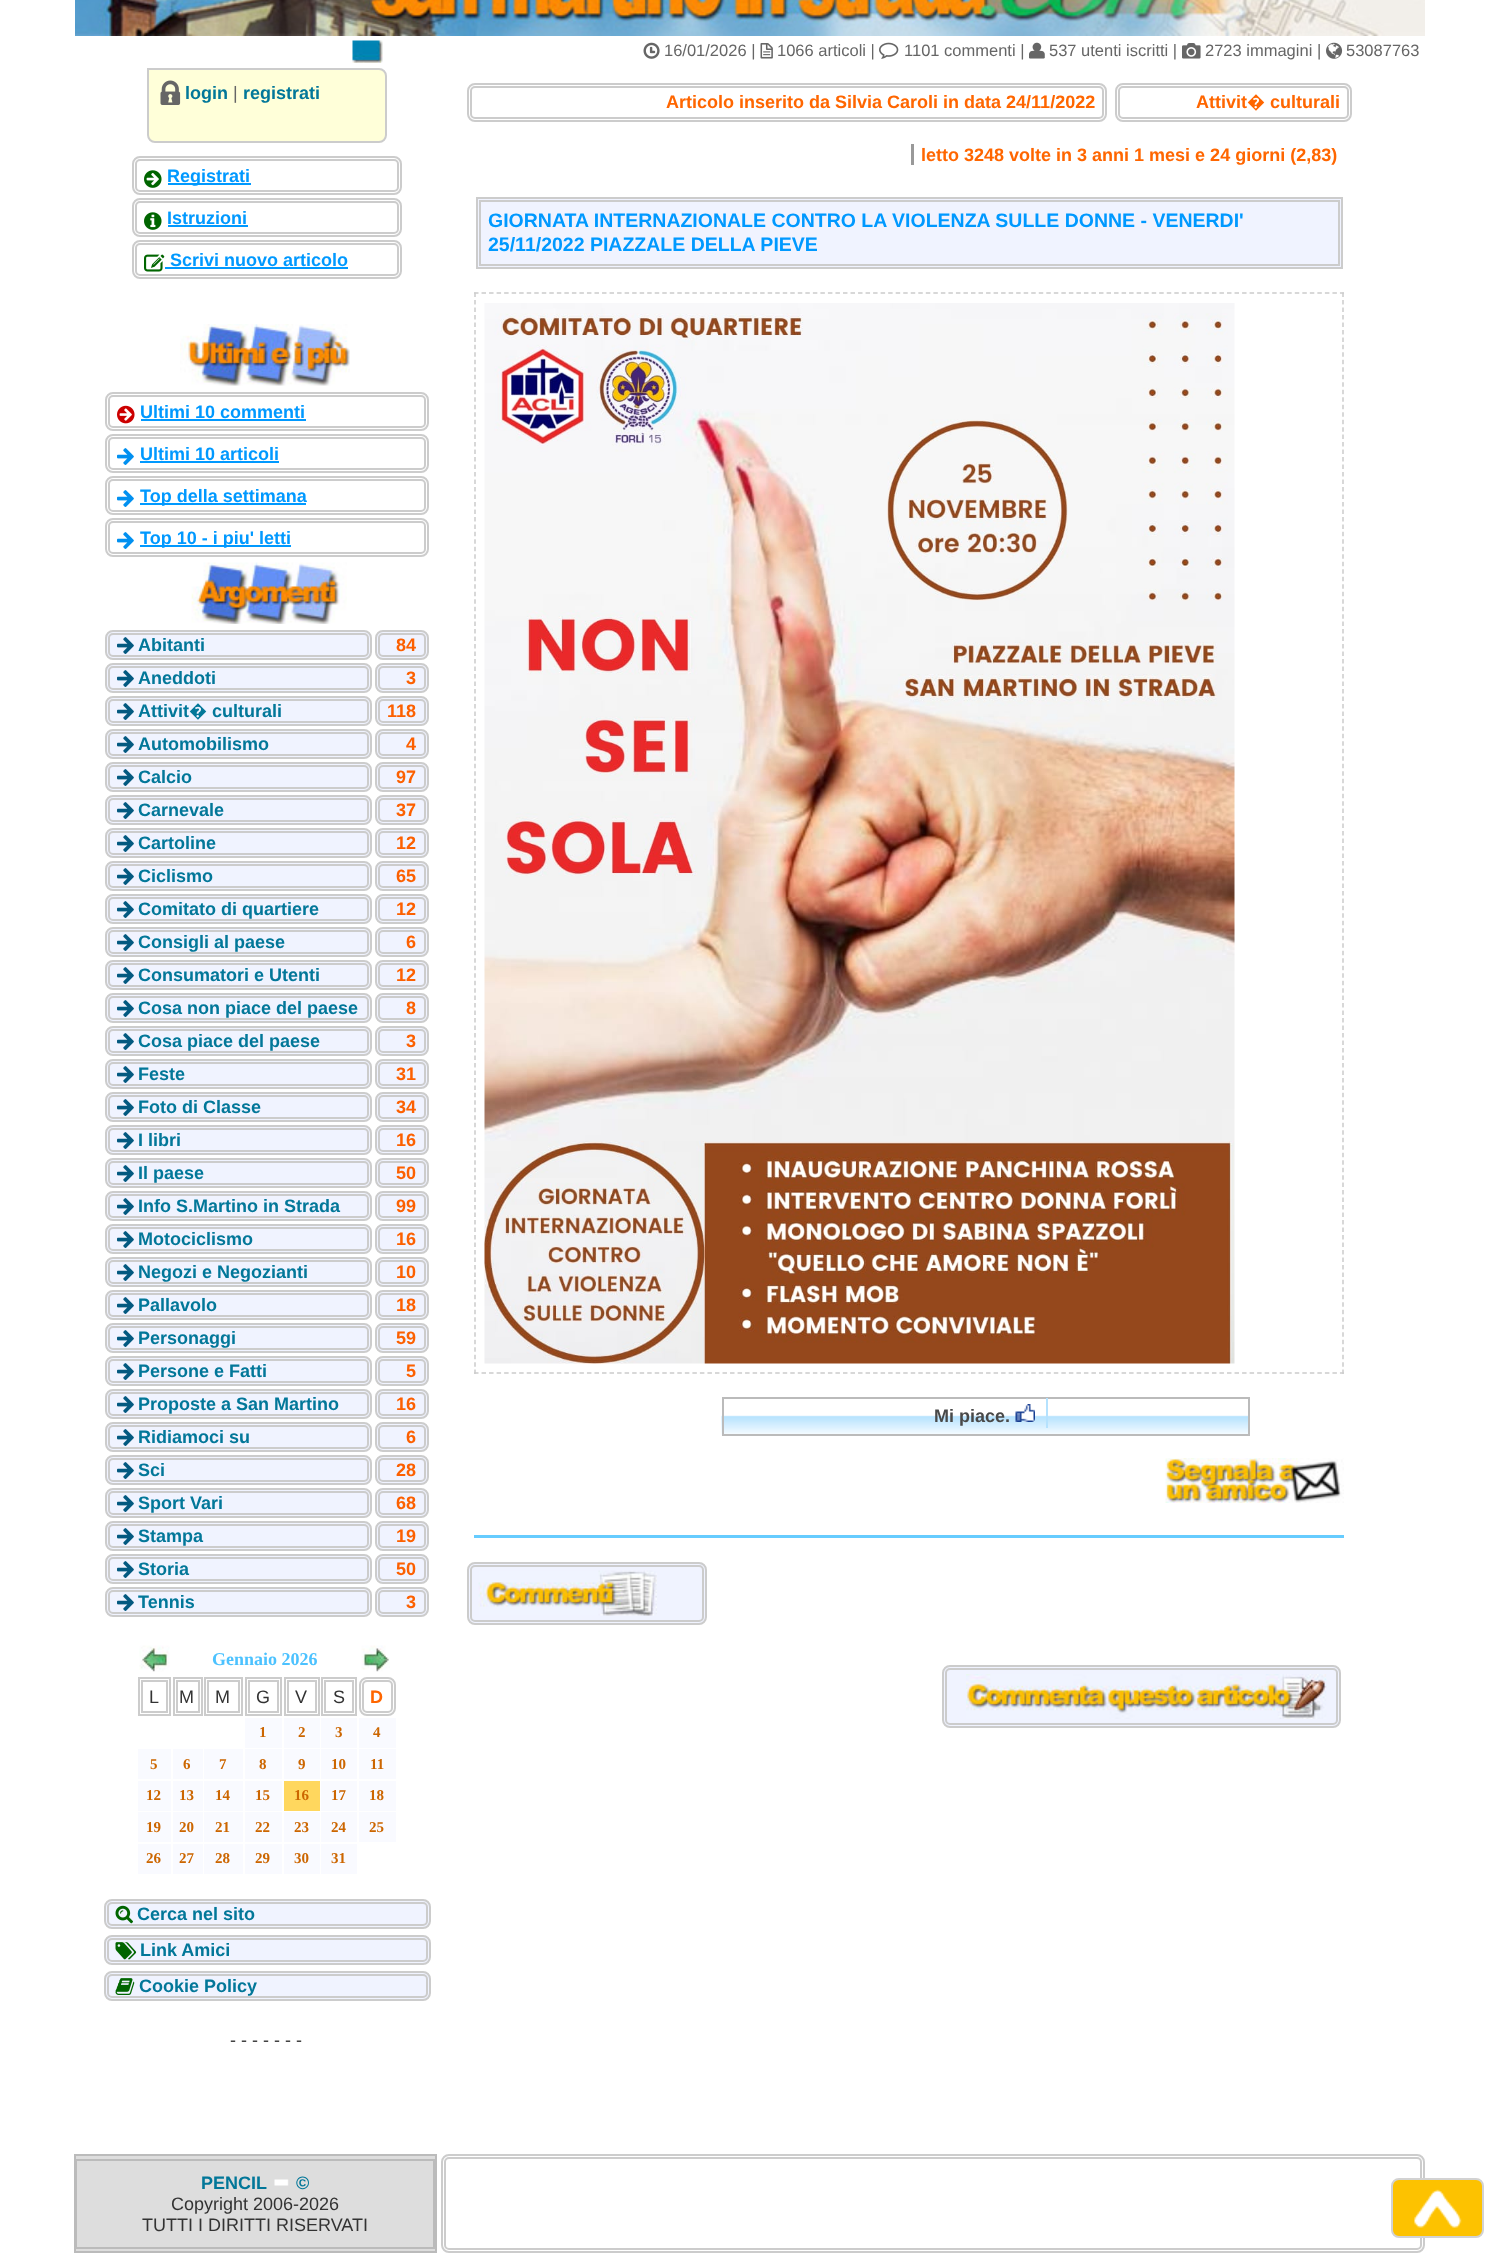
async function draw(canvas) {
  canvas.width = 1498
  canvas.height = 2253
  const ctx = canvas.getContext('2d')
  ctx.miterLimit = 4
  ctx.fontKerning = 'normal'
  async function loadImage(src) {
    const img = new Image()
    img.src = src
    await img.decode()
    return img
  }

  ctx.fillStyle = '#fff'
  ctx.fillRect(0, 0, 1498, 2253)
  ctx.drawImage(await loadImage('image0.png'), 75, 0, 1350, 36)
  ctx.drawImage(await loadImage('image1.png'), 352, 40, 31, 23)
  ctx.drawImage(await loadImage('image2.png'), 643, 42, 17, 17)
  ctx.font = '16.5px Liberation Sans'
  ctx.fillStyle = '#666'
  ctx.fillText('16/01/2026 |', 664, 56)
  ctx.drawImage(await loadImage('image3.png'), 760, 43, 13, 16)
  ctx.fillText('1066 articoli |', 777, 56)
  ctx.drawImage(await loadImage('image4.png'), 879, 42, 20, 17)
  ctx.fillText('1101 commenti |', 904, 56)
  ctx.drawImage(await loadImage('image5.png'), 1029, 42, 16, 17)
  ctx.fillText('537 utenti iscritti |', 1049, 56)
  ctx.drawImage(await loadImage('image6.png'), 1182, 43, 19, 16)
  ctx.fillText('2723 immagini |', 1205, 56)
  ctx.drawImage(await loadImage('image7.png'), 1326, 42, 17, 17)
  ctx.fillText('53087763', 1346, 56)
  ctx.fillStyle = '#ffffd9'
  ctx.beginPath()
  ctx.roundRect(148, 69, 238, 73, [0, 7, 7, 7])
  ctx.fill()
  ctx.strokeStyle = '#ccc'
  ctx.lineWidth = 2
  ctx.stroke()
  ctx.drawImage(await loadImage('image8.png'), 160, 80, 21, 25)
  ctx.font = 'bold 18px Liberation Sans'
  ctx.fillStyle = '#027799'
  ctx.fillText('login', 185, 99)
  ctx.font = '18px Liberation Sans'
  ctx.fillStyle = '#666'
  ctx.fillText('|', 233, 99)
  ctx.font = 'bold 18px Liberation Sans'
  ctx.fillStyle = '#027799'
  ctx.fillText('registrati', 243, 99)
  ctx.beginPath()
  ctx.roundRect(133, 157, 268, 37, 7)
  ctx.stroke()
  ctx.beginPath()
  ctx.roundRect(136, 160, 262, 31, 4)
  ctx.stroke()
  ctx.drawImage(await loadImage('image9.png'), 144, 170, 18, 18)
  ctx.fillStyle = '#09f'
  ctx.fillRect(168, 183, 83, 2)
  ctx.fillText('Registrati', 167, 182)
  ctx.beginPath()
  ctx.roundRect(133, 199, 268, 37, 7)
  ctx.stroke()
  ctx.beginPath()
  ctx.roundRect(136, 202, 262, 31, 4)
  ctx.stroke()
  ctx.drawImage(await loadImage('image10.png'), 144, 212, 18, 18)
  ctx.fillText('Istruzioni', 167, 224)
  ctx.fillRect(168, 225, 80, 2)
  ctx.beginPath()
  ctx.roundRect(133, 241, 268, 37, 7)
  ctx.stroke()
  ctx.beginPath()
  ctx.roundRect(136, 244, 262, 31, 4)
  ctx.stroke()
  ctx.drawImage(await loadImage('image11.png'), 144, 254, 21, 18)
  ctx.fillText('Scrivi nuovo articolo', 170, 266)
  ctx.fillRect(165, 267, 183, 2)
  ctx.drawImage(await loadImage('image12.png'), 180, 324, 170, 62)
  ctx.beginPath()
  ctx.roundRect(106, 393, 322, 37, 7)
  ctx.stroke()
  ctx.beginPath()
  ctx.roundRect(109, 396, 316, 31, 4)
  ctx.stroke()
  ctx.drawImage(await loadImage('image13.png'), 117, 405, 18, 19)
  ctx.fillText('Ultimi 10 commenti', 140, 418)
  ctx.fillRect(141, 419, 165, 2)
  ctx.beginPath()
  ctx.roundRect(106, 435, 322, 37, 7)
  ctx.stroke()
  ctx.beginPath()
  ctx.roundRect(109, 438, 316, 31, 4)
  ctx.stroke()
  ctx.drawImage(await loadImage('image14.png'), 117, 448, 17, 17)
  ctx.fillText('Ultimi 10 articoli', 140, 460)
  ctx.fillRect(140, 461, 139, 2)
  ctx.beginPath()
  ctx.roundRect(106, 477, 322, 37, 7)
  ctx.stroke()
  ctx.beginPath()
  ctx.roundRect(109, 480, 316, 31, 4)
  ctx.stroke()
  ctx.drawImage(await loadImage('image14.png'), 117, 490, 17, 17)
  ctx.fillRect(140, 503, 166, 2)
  ctx.fillText('Top della settimana', 140, 502)
  ctx.beginPath()
  ctx.roundRect(106, 519, 322, 37, 7)
  ctx.stroke()
  ctx.beginPath()
  ctx.roundRect(109, 522, 316, 31, 4)
  ctx.stroke()
  ctx.drawImage(await loadImage('image14.png'), 117, 532, 17, 17)
  ctx.fillRect(140, 545, 151, 2)
  ctx.fillText('Top 10 - i piu\' letti', 140, 544)
  ctx.drawImage(await loadImage('image15.png'), 191, 562, 156, 62)
  ctx.fillStyle = '#f0f3ff'
  ctx.beginPath()
  ctx.roundRect(106, 631, 265, 28, 7)
  ctx.fill()
  ctx.stroke()
  ctx.beginPath()
  ctx.roundRect(109, 634, 259, 22, 4)
  ctx.stroke()
  ctx.drawImage(await loadImage('image16.png'), 117, 637, 17, 17)
  ctx.fillStyle = '#027799'
  ctx.fillText('Abitanti', 138, 651)
  ctx.fillStyle = '#f0f3ff'
  ctx.beginPath()
  ctx.roundRect(376, 631, 52, 28, 7)
  ctx.fill()
  ctx.stroke()
  ctx.beginPath()
  ctx.roundRect(379, 634, 46, 22, 4)
  ctx.stroke()
  ctx.fillStyle = '#fc6001'
  ctx.fillText('84', 396, 651)
  ctx.fillStyle = '#f0f3ff'
  ctx.beginPath()
  ctx.roundRect(106, 664, 265, 28, 7)
  ctx.fill()
  ctx.stroke()
  ctx.beginPath()
  ctx.roundRect(109, 667, 259, 22, 4)
  ctx.stroke()
  ctx.drawImage(await loadImage('image16.png'), 117, 670, 17, 17)
  ctx.fillStyle = '#027799'
  ctx.fillText('Aneddoti', 138, 684)
  ctx.fillStyle = '#f0f3ff'
  ctx.beginPath()
  ctx.roundRect(376, 664, 52, 28, 7)
  ctx.fill()
  ctx.stroke()
  ctx.beginPath()
  ctx.roundRect(379, 667, 46, 22, 4)
  ctx.stroke()
  ctx.fillStyle = '#fc6001'
  ctx.fillText('3', 406, 684)
  ctx.fillStyle = '#f0f3ff'
  ctx.beginPath()
  ctx.roundRect(106, 697, 265, 28, 7)
  ctx.fill()
  ctx.stroke()
  ctx.beginPath()
  ctx.roundRect(109, 700, 259, 22, 4)
  ctx.stroke()
  ctx.drawImage(await loadImage('image16.png'), 117, 703, 17, 17)
  ctx.fillStyle = '#027799'
  ctx.fillText('Attivit', 138, 717)
  ctx.font = 'bold 18px Noto Sans'
  ctx.fillText('�', 189, 717)
  ctx.font = 'bold 18px Liberation Sans'
  ctx.fillText('culturali', 212, 717)
  ctx.fillStyle = '#f0f3ff'
  ctx.beginPath()
  ctx.roundRect(376, 697, 52, 28, 7)
  ctx.fill()
  ctx.stroke()
  ctx.beginPath()
  ctx.roundRect(379, 700, 46, 22, 4)
  ctx.stroke()
  ctx.fillStyle = '#fc6001'
  ctx.fillText('118', 387, 717)
  ctx.fillStyle = '#f0f3ff'
  ctx.beginPath()
  ctx.roundRect(106, 730, 265, 28, 7)
  ctx.fill()
  ctx.stroke()
  ctx.beginPath()
  ctx.roundRect(109, 733, 259, 22, 4)
  ctx.stroke()
  ctx.drawImage(await loadImage('image16.png'), 117, 736, 17, 17)
  ctx.fillStyle = '#027799'
  ctx.fillText('Automobilismo', 138, 750)
  ctx.fillStyle = '#f0f3ff'
  ctx.beginPath()
  ctx.roundRect(376, 730, 52, 28, 7)
  ctx.fill()
  ctx.stroke()
  ctx.beginPath()
  ctx.roundRect(379, 733, 46, 22, 4)
  ctx.stroke()
  ctx.fillStyle = '#fc6001'
  ctx.fillText('4', 406, 750)
  ctx.fillStyle = '#f0f3ff'
  ctx.beginPath()
  ctx.roundRect(106, 763, 265, 28, 7)
  ctx.fill()
  ctx.stroke()
  ctx.beginPath()
  ctx.roundRect(109, 766, 259, 22, 4)
  ctx.stroke()
  ctx.drawImage(await loadImage('image16.png'), 117, 769, 17, 17)
  ctx.fillStyle = '#027799'
  ctx.fillText('Calcio', 138, 783)
  ctx.fillStyle = '#f0f3ff'
  ctx.beginPath()
  ctx.roundRect(376, 763, 52, 28, 7)
  ctx.fill()
  ctx.stroke()
  ctx.beginPath()
  ctx.roundRect(379, 766, 46, 22, 4)
  ctx.stroke()
  ctx.fillStyle = '#fc6001'
  ctx.fillText('97', 396, 783)
  ctx.fillStyle = '#f0f3ff'
  ctx.beginPath()
  ctx.roundRect(106, 796, 265, 28, 7)
  ctx.fill()
  ctx.stroke()
  ctx.beginPath()
  ctx.roundRect(109, 799, 259, 22, 4)
  ctx.stroke()
  ctx.drawImage(await loadImage('image16.png'), 117, 802, 17, 17)
  ctx.fillStyle = '#027799'
  ctx.fillText('Carnevale', 138, 816)
  ctx.fillStyle = '#f0f3ff'
  ctx.beginPath()
  ctx.roundRect(376, 796, 52, 28, 7)
  ctx.fill()
  ctx.stroke()
  ctx.beginPath()
  ctx.roundRect(379, 799, 46, 22, 4)
  ctx.stroke()
  ctx.fillStyle = '#fc6001'
  ctx.fillText('37', 396, 816)
  ctx.fillStyle = '#f0f3ff'
  ctx.beginPath()
  ctx.roundRect(106, 829, 265, 28, 7)
  ctx.fill()
  ctx.stroke()
  ctx.beginPath()
  ctx.roundRect(109, 832, 259, 22, 4)
  ctx.stroke()
  ctx.drawImage(await loadImage('image16.png'), 117, 835, 17, 17)
  ctx.fillStyle = '#027799'
  ctx.fillText('Cartoline', 138, 849)
  ctx.fillStyle = '#f0f3ff'
  ctx.beginPath()
  ctx.roundRect(376, 829, 52, 28, 7)
  ctx.fill()
  ctx.stroke()
  ctx.beginPath()
  ctx.roundRect(379, 832, 46, 22, 4)
  ctx.stroke()
  ctx.fillStyle = '#fc6001'
  ctx.fillText('12', 396, 849)
  ctx.fillStyle = '#f0f3ff'
  ctx.beginPath()
  ctx.roundRect(106, 862, 265, 28, 7)
  ctx.fill()
  ctx.stroke()
  ctx.beginPath()
  ctx.roundRect(109, 865, 259, 22, 4)
  ctx.stroke()
  ctx.drawImage(await loadImage('image16.png'), 117, 868, 17, 17)
  ctx.fillStyle = '#027799'
  ctx.fillText('Ciclismo', 138, 882)
  ctx.fillStyle = '#f0f3ff'
  ctx.beginPath()
  ctx.roundRect(376, 862, 52, 28, 7)
  ctx.fill()
  ctx.stroke()
  ctx.beginPath()
  ctx.roundRect(379, 865, 46, 22, 4)
  ctx.stroke()
  ctx.fillStyle = '#fc6001'
  ctx.fillText('65', 396, 882)
  ctx.fillStyle = '#f0f3ff'
  ctx.beginPath()
  ctx.roundRect(106, 895, 265, 28, 7)
  ctx.fill()
  ctx.stroke()
  ctx.beginPath()
  ctx.roundRect(109, 898, 259, 22, 4)
  ctx.stroke()
  ctx.drawImage(await loadImage('image16.png'), 117, 901, 17, 17)
  ctx.fillStyle = '#027799'
  ctx.fillText('Comitato di quartiere', 138, 915)
  ctx.fillStyle = '#f0f3ff'
  ctx.beginPath()
  ctx.roundRect(376, 895, 52, 28, 7)
  ctx.fill()
  ctx.stroke()
  ctx.beginPath()
  ctx.roundRect(379, 898, 46, 22, 4)
  ctx.stroke()
  ctx.fillStyle = '#fc6001'
  ctx.fillText('12', 396, 915)
  ctx.fillStyle = '#f0f3ff'
  ctx.beginPath()
  ctx.roundRect(106, 928, 265, 28, 7)
  ctx.fill()
  ctx.stroke()
  ctx.beginPath()
  ctx.roundRect(109, 931, 259, 22, 4)
  ctx.stroke()
  ctx.drawImage(await loadImage('image16.png'), 117, 934, 17, 17)
  ctx.fillStyle = '#027799'
  ctx.fillText('Consigli al paese', 138, 948)
  ctx.fillStyle = '#f0f3ff'
  ctx.beginPath()
  ctx.roundRect(376, 928, 52, 28, 7)
  ctx.fill()
  ctx.stroke()
  ctx.beginPath()
  ctx.roundRect(379, 931, 46, 22, 4)
  ctx.stroke()
  ctx.fillStyle = '#fc6001'
  ctx.fillText('6', 406, 948)
  ctx.fillStyle = '#f0f3ff'
  ctx.beginPath()
  ctx.roundRect(106, 961, 265, 28, 7)
  ctx.fill()
  ctx.stroke()
  ctx.beginPath()
  ctx.roundRect(109, 964, 259, 22, 4)
  ctx.stroke()
  ctx.drawImage(await loadImage('image16.png'), 117, 967, 17, 17)
  ctx.fillStyle = '#027799'
  ctx.fillText('Consumatori e Utenti', 138, 981)
  ctx.fillStyle = '#f0f3ff'
  ctx.beginPath()
  ctx.roundRect(376, 961, 52, 28, 7)
  ctx.fill()
  ctx.stroke()
  ctx.beginPath()
  ctx.roundRect(379, 964, 46, 22, 4)
  ctx.stroke()
  ctx.fillStyle = '#fc6001'
  ctx.fillText('12', 396, 981)
  ctx.fillStyle = '#f0f3ff'
  ctx.beginPath()
  ctx.roundRect(106, 994, 265, 28, 7)
  ctx.fill()
  ctx.stroke()
  ctx.beginPath()
  ctx.roundRect(109, 997, 259, 22, 4)
  ctx.stroke()
  ctx.drawImage(await loadImage('image16.png'), 117, 1000, 17, 17)
  ctx.fillStyle = '#027799'
  ctx.fillText('Cosa non piace del paese', 138, 1014)
  ctx.fillStyle = '#f0f3ff'
  ctx.beginPath()
  ctx.roundRect(376, 994, 52, 28, 7)
  ctx.fill()
  ctx.stroke()
  ctx.beginPath()
  ctx.roundRect(379, 997, 46, 22, 4)
  ctx.stroke()
  ctx.fillStyle = '#fc6001'
  ctx.fillText('8', 406, 1014)
  ctx.fillStyle = '#f0f3ff'
  ctx.beginPath()
  ctx.roundRect(106, 1027, 265, 28, 7)
  ctx.fill()
  ctx.stroke()
  ctx.beginPath()
  ctx.roundRect(109, 1030, 259, 22, 4)
  ctx.stroke()
  ctx.drawImage(await loadImage('image16.png'), 117, 1033, 17, 17)
  ctx.fillStyle = '#027799'
  ctx.fillText('Cosa piace del paese', 138, 1047)
  ctx.fillStyle = '#f0f3ff'
  ctx.beginPath()
  ctx.roundRect(376, 1027, 52, 28, 7)
  ctx.fill()
  ctx.stroke()
  ctx.beginPath()
  ctx.roundRect(379, 1030, 46, 22, 4)
  ctx.stroke()
  ctx.fillStyle = '#fc6001'
  ctx.fillText('3', 406, 1047)
  ctx.fillStyle = '#f0f3ff'
  ctx.beginPath()
  ctx.roundRect(106, 1060, 265, 28, 7)
  ctx.fill()
  ctx.stroke()
  ctx.beginPath()
  ctx.roundRect(109, 1063, 259, 22, 4)
  ctx.stroke()
  ctx.drawImage(await loadImage('image16.png'), 117, 1066, 17, 17)
  ctx.fillStyle = '#027799'
  ctx.fillText('Feste', 138, 1080)
  ctx.fillStyle = '#f0f3ff'
  ctx.beginPath()
  ctx.roundRect(376, 1060, 52, 28, 7)
  ctx.fill()
  ctx.stroke()
  ctx.beginPath()
  ctx.roundRect(379, 1063, 46, 22, 4)
  ctx.stroke()
  ctx.fillStyle = '#fc6001'
  ctx.fillText('31', 396, 1080)
  ctx.fillStyle = '#f0f3ff'
  ctx.beginPath()
  ctx.roundRect(106, 1093, 265, 28, 7)
  ctx.fill()
  ctx.stroke()
  ctx.beginPath()
  ctx.roundRect(109, 1096, 259, 22, 4)
  ctx.stroke()
  ctx.drawImage(await loadImage('image16.png'), 117, 1099, 17, 17)
  ctx.fillStyle = '#027799'
  ctx.fillText('Foto di Classe', 138, 1113)
  ctx.fillStyle = '#f0f3ff'
  ctx.beginPath()
  ctx.roundRect(376, 1093, 52, 28, 7)
  ctx.fill()
  ctx.stroke()
  ctx.beginPath()
  ctx.roundRect(379, 1096, 46, 22, 4)
  ctx.stroke()
  ctx.fillStyle = '#fc6001'
  ctx.fillText('34', 396, 1113)
  ctx.fillStyle = '#f0f3ff'
  ctx.beginPath()
  ctx.roundRect(106, 1126, 265, 28, 7)
  ctx.fill()
  ctx.stroke()
  ctx.beginPath()
  ctx.roundRect(109, 1129, 259, 22, 4)
  ctx.stroke()
  ctx.drawImage(await loadImage('image16.png'), 117, 1132, 17, 17)
  ctx.fillStyle = '#027799'
  ctx.fillText('I libri', 138, 1146)
  ctx.fillStyle = '#f0f3ff'
  ctx.beginPath()
  ctx.roundRect(376, 1126, 52, 28, 7)
  ctx.fill()
  ctx.stroke()
  ctx.beginPath()
  ctx.roundRect(379, 1129, 46, 22, 4)
  ctx.stroke()
  ctx.fillStyle = '#fc6001'
  ctx.fillText('16', 396, 1146)
  ctx.fillStyle = '#f0f3ff'
  ctx.beginPath()
  ctx.roundRect(106, 1159, 265, 28, 7)
  ctx.fill()
  ctx.stroke()
  ctx.beginPath()
  ctx.roundRect(109, 1162, 259, 22, 4)
  ctx.stroke()
  ctx.drawImage(await loadImage('image16.png'), 117, 1165, 17, 17)
  ctx.fillStyle = '#027799'
  ctx.fillText('Il paese', 138, 1179)
  ctx.fillStyle = '#f0f3ff'
  ctx.beginPath()
  ctx.roundRect(376, 1159, 52, 28, 7)
  ctx.fill()
  ctx.stroke()
  ctx.beginPath()
  ctx.roundRect(379, 1162, 46, 22, 4)
  ctx.stroke()
  ctx.fillStyle = '#fc6001'
  ctx.fillText('50', 396, 1179)
  ctx.fillStyle = '#f0f3ff'
  ctx.beginPath()
  ctx.roundRect(106, 1192, 265, 28, 7)
  ctx.fill()
  ctx.stroke()
  ctx.beginPath()
  ctx.roundRect(109, 1195, 259, 22, 4)
  ctx.stroke()
  ctx.drawImage(await loadImage('image16.png'), 117, 1198, 17, 17)
  ctx.fillStyle = '#027799'
  ctx.fillText('Info S.Martino in Strada', 138, 1212)
  ctx.fillStyle = '#f0f3ff'
  ctx.beginPath()
  ctx.roundRect(376, 1192, 52, 28, 7)
  ctx.fill()
  ctx.stroke()
  ctx.beginPath()
  ctx.roundRect(379, 1195, 46, 22, 4)
  ctx.stroke()
  ctx.fillStyle = '#fc6001'
  ctx.fillText('99', 396, 1212)
  ctx.fillStyle = '#f0f3ff'
  ctx.beginPath()
  ctx.roundRect(106, 1225, 265, 28, 7)
  ctx.fill()
  ctx.stroke()
  ctx.beginPath()
  ctx.roundRect(109, 1228, 259, 22, 4)
  ctx.stroke()
  ctx.drawImage(await loadImage('image16.png'), 117, 1231, 17, 17)
  ctx.fillStyle = '#027799'
  ctx.fillText('Motociclismo', 138, 1245)
  ctx.fillStyle = '#f0f3ff'
  ctx.beginPath()
  ctx.roundRect(376, 1225, 52, 28, 7)
  ctx.fill()
  ctx.stroke()
  ctx.beginPath()
  ctx.roundRect(379, 1228, 46, 22, 4)
  ctx.stroke()
  ctx.fillStyle = '#fc6001'
  ctx.fillText('16', 396, 1245)
  ctx.fillStyle = '#f0f3ff'
  ctx.beginPath()
  ctx.roundRect(106, 1258, 265, 28, 7)
  ctx.fill()
  ctx.stroke()
  ctx.beginPath()
  ctx.roundRect(109, 1261, 259, 22, 4)
  ctx.stroke()
  ctx.drawImage(await loadImage('image16.png'), 117, 1264, 17, 17)
  ctx.fillStyle = '#027799'
  ctx.fillText('Negozi e Negozianti', 138, 1278)
  ctx.fillStyle = '#f0f3ff'
  ctx.beginPath()
  ctx.roundRect(376, 1258, 52, 28, 7)
  ctx.fill()
  ctx.stroke()
  ctx.beginPath()
  ctx.roundRect(379, 1261, 46, 22, 4)
  ctx.stroke()
  ctx.fillStyle = '#fc6001'
  ctx.fillText('10', 396, 1278)
  ctx.fillStyle = '#f0f3ff'
  ctx.beginPath()
  ctx.roundRect(106, 1291, 265, 28, 7)
  ctx.fill()
  ctx.stroke()
  ctx.beginPath()
  ctx.roundRect(109, 1294, 259, 22, 4)
  ctx.stroke()
  ctx.drawImage(await loadImage('image16.png'), 117, 1297, 17, 17)
  ctx.fillStyle = '#027799'
  ctx.fillText('Pallavolo', 138, 1311)
  ctx.fillStyle = '#f0f3ff'
  ctx.beginPath()
  ctx.roundRect(376, 1291, 52, 28, 7)
  ctx.fill()
  ctx.stroke()
  ctx.beginPath()
  ctx.roundRect(379, 1294, 46, 22, 4)
  ctx.stroke()
  ctx.fillStyle = '#fc6001'
  ctx.fillText('18', 396, 1311)
  ctx.fillStyle = '#f0f3ff'
  ctx.beginPath()
  ctx.roundRect(106, 1324, 265, 28, 7)
  ctx.fill()
  ctx.stroke()
  ctx.beginPath()
  ctx.roundRect(109, 1327, 259, 22, 4)
  ctx.stroke()
  ctx.drawImage(await loadImage('image16.png'), 117, 1330, 17, 17)
  ctx.fillStyle = '#027799'
  ctx.fillText('Personaggi', 138, 1344)
  ctx.fillStyle = '#f0f3ff'
  ctx.beginPath()
  ctx.roundRect(376, 1324, 52, 28, 7)
  ctx.fill()
  ctx.stroke()
  ctx.beginPath()
  ctx.roundRect(379, 1327, 46, 22, 4)
  ctx.stroke()
  ctx.fillStyle = '#fc6001'
  ctx.fillText('59', 396, 1344)
  ctx.fillStyle = '#f0f3ff'
  ctx.beginPath()
  ctx.roundRect(106, 1357, 265, 28, 7)
  ctx.fill()
  ctx.stroke()
  ctx.beginPath()
  ctx.roundRect(109, 1360, 259, 22, 4)
  ctx.stroke()
  ctx.drawImage(await loadImage('image16.png'), 117, 1363, 17, 17)
  ctx.fillStyle = '#027799'
  ctx.fillText('Persone e Fatti', 138, 1377)
  ctx.fillStyle = '#f0f3ff'
  ctx.beginPath()
  ctx.roundRect(376, 1357, 52, 28, 7)
  ctx.fill()
  ctx.stroke()
  ctx.beginPath()
  ctx.roundRect(379, 1360, 46, 22, 4)
  ctx.stroke()
  ctx.fillStyle = '#fc6001'
  ctx.fillText('5', 406, 1377)
  ctx.fillStyle = '#f0f3ff'
  ctx.beginPath()
  ctx.roundRect(106, 1390, 265, 28, 7)
  ctx.fill()
  ctx.stroke()
  ctx.beginPath()
  ctx.roundRect(109, 1393, 259, 22, 4)
  ctx.stroke()
  ctx.drawImage(await loadImage('image16.png'), 117, 1396, 17, 17)
  ctx.fillStyle = '#027799'
  ctx.fillText('Proposte a San Martino', 138, 1410)
  ctx.fillStyle = '#f0f3ff'
  ctx.beginPath()
  ctx.roundRect(376, 1390, 52, 28, 7)
  ctx.fill()
  ctx.stroke()
  ctx.beginPath()
  ctx.roundRect(379, 1393, 46, 22, 4)
  ctx.stroke()
  ctx.fillStyle = '#fc6001'
  ctx.fillText('16', 396, 1410)
  ctx.fillStyle = '#f0f3ff'
  ctx.beginPath()
  ctx.roundRect(106, 1423, 265, 28, 7)
  ctx.fill()
  ctx.stroke()
  ctx.beginPath()
  ctx.roundRect(109, 1426, 259, 22, 4)
  ctx.stroke()
  ctx.drawImage(await loadImage('image16.png'), 117, 1429, 17, 17)
  ctx.fillStyle = '#027799'
  ctx.fillText('Ridiamoci su', 138, 1443)
  ctx.fillStyle = '#f0f3ff'
  ctx.beginPath()
  ctx.roundRect(376, 1423, 52, 28, 7)
  ctx.fill()
  ctx.stroke()
  ctx.beginPath()
  ctx.roundRect(379, 1426, 46, 22, 4)
  ctx.stroke()
  ctx.fillStyle = '#fc6001'
  ctx.fillText('6', 406, 1443)
  ctx.fillStyle = '#f0f3ff'
  ctx.beginPath()
  ctx.roundRect(106, 1456, 265, 28, 7)
  ctx.fill()
  ctx.stroke()
  ctx.beginPath()
  ctx.roundRect(109, 1459, 259, 22, 4)
  ctx.stroke()
  ctx.drawImage(await loadImage('image16.png'), 117, 1462, 17, 17)
  ctx.fillStyle = '#027799'
  ctx.fillText('Sci', 138, 1476)
  ctx.fillStyle = '#f0f3ff'
  ctx.beginPath()
  ctx.roundRect(376, 1456, 52, 28, 7)
  ctx.fill()
  ctx.stroke()
  ctx.beginPath()
  ctx.roundRect(379, 1459, 46, 22, 4)
  ctx.stroke()
  ctx.fillStyle = '#fc6001'
  ctx.fillText('28', 396, 1476)
  ctx.fillStyle = '#f0f3ff'
  ctx.beginPath()
  ctx.roundRect(106, 1489, 265, 28, 7)
  ctx.fill()
  ctx.stroke()
  ctx.beginPath()
  ctx.roundRect(109, 1492, 259, 22, 4)
  ctx.stroke()
  ctx.drawImage(await loadImage('image16.png'), 117, 1495, 17, 17)
  ctx.fillStyle = '#027799'
  ctx.fillText('Sport Vari', 138, 1509)
  ctx.fillStyle = '#f0f3ff'
  ctx.beginPath()
  ctx.roundRect(376, 1489, 52, 28, 7)
  ctx.fill()
  ctx.stroke()
  ctx.beginPath()
  ctx.roundRect(379, 1492, 46, 22, 4)
  ctx.stroke()
  ctx.fillStyle = '#fc6001'
  ctx.fillText('68', 396, 1509)
  ctx.fillStyle = '#f0f3ff'
  ctx.beginPath()
  ctx.roundRect(106, 1522, 265, 28, 7)
  ctx.fill()
  ctx.stroke()
  ctx.beginPath()
  ctx.roundRect(109, 1525, 259, 22, 4)
  ctx.stroke()
  ctx.drawImage(await loadImage('image16.png'), 117, 1528, 17, 17)
  ctx.fillStyle = '#027799'
  ctx.fillText('Stampa', 138, 1542)
  ctx.fillStyle = '#f0f3ff'
  ctx.beginPath()
  ctx.roundRect(376, 1522, 52, 28, 7)
  ctx.fill()
  ctx.stroke()
  ctx.beginPath()
  ctx.roundRect(379, 1525, 46, 22, 4)
  ctx.stroke()
  ctx.fillStyle = '#fc6001'
  ctx.fillText('19', 396, 1542)
  ctx.fillStyle = '#f0f3ff'
  ctx.beginPath()
  ctx.roundRect(106, 1555, 265, 28, 7)
  ctx.fill()
  ctx.stroke()
  ctx.beginPath()
  ctx.roundRect(109, 1558, 259, 22, 4)
  ctx.stroke()
  ctx.drawImage(await loadImage('image16.png'), 117, 1561, 17, 17)
  ctx.fillStyle = '#027799'
  ctx.fillText('Storia', 138, 1575)
  ctx.fillStyle = '#f0f3ff'
  ctx.beginPath()
  ctx.roundRect(376, 1555, 52, 28, 7)
  ctx.fill()
  ctx.stroke()
  ctx.beginPath()
  ctx.roundRect(379, 1558, 46, 22, 4)
  ctx.stroke()
  ctx.fillStyle = '#fc6001'
  ctx.fillText('50', 396, 1575)
  ctx.fillStyle = '#f0f3ff'
  ctx.beginPath()
  ctx.roundRect(106, 1588, 265, 28, 7)
  ctx.fill()
  ctx.stroke()
  ctx.beginPath()
  ctx.roundRect(109, 1591, 259, 22, 4)
  ctx.stroke()
  ctx.drawImage(await loadImage('image16.png'), 117, 1594, 17, 17)
  ctx.fillStyle = '#027799'
  ctx.fillText('Tennis', 138, 1608)
  ctx.fillStyle = '#f0f3ff'
  ctx.beginPath()
  ctx.roundRect(376, 1588, 52, 28, 7)
  ctx.fill()
  ctx.stroke()
  ctx.beginPath()
  ctx.roundRect(379, 1591, 46, 22, 4)
  ctx.stroke()
  ctx.fillStyle = '#fc6001'
  ctx.fillText('3', 406, 1608)
  ctx.drawImage(await loadImage('image17.png'), 139, 1645, 31, 27)
  ctx.font = 'bold 18px Liberation Serif'
  ctx.fillStyle = '#4cc2ff'
  ctx.fillText('Gennaio 2026', 212, 1665)
  ctx.drawImage(await loadImage('image18.png'), 361, 1645, 29, 27)
  ctx.strokeRect(139, 1678, 31, 37)
  ctx.strokeRect(142, 1681, 25, 31)
  ctx.font = '18px Liberation Sans'
  ctx.fillStyle = '#333'
  ctx.fillText('L', 149, 1703)
  ctx.strokeRect(174, 1678, 28, 37)
  ctx.strokeRect(177, 1681, 22, 31)
  ctx.fillText('M', 179, 1703)
  ctx.strokeRect(205, 1678, 37, 37)
  ctx.strokeRect(208, 1681, 31, 31)
  ctx.fillText('M', 215, 1703)
  ctx.strokeRect(246, 1678, 35, 37)
  ctx.strokeRect(249, 1681, 29, 31)
  ctx.fillText('G', 256, 1703)
  ctx.strokeRect(285, 1678, 34, 37)
  ctx.strokeRect(288, 1681, 28, 31)
  ctx.fillText('V', 295, 1703)
  ctx.strokeRect(322, 1678, 34, 37)
  ctx.strokeRect(325, 1681, 28, 31)
  ctx.fillText('S', 333, 1703)
  ctx.beginPath()
  ctx.roundRect(360, 1678, 35, 37, 7)
  ctx.stroke()
  ctx.beginPath()
  ctx.roundRect(363, 1681, 29, 31, 4)
  ctx.stroke()
  ctx.font = 'bold 18px Liberation Sans'
  ctx.fillStyle = '#f60'
  ctx.fillText('D', 370, 1703)
  ctx.fillStyle = '#f9faff'
  ctx.fillRect(245, 1718, 37, 30)
  ctx.font = 'bold 15px Liberation Serif'
  ctx.fillStyle = '#c60'
  ctx.fillText('1', 259, 1737)
  ctx.fillStyle = '#f9faff'
  ctx.fillRect(284, 1718, 36, 30)
  ctx.fillStyle = '#c60'
  ctx.fillText('2', 298, 1737)
  ctx.fillStyle = '#f9faff'
  ctx.fillRect(321, 1718, 36, 30)
  ctx.fillStyle = '#c60'
  ctx.fillText('3', 335, 1737)
  ctx.fillStyle = '#f9faff'
  ctx.fillRect(359, 1718, 37, 30)
  ctx.fillStyle = '#c60'
  ctx.fillText('4', 373, 1737)
  ctx.fillStyle = '#f9faff'
  ctx.fillRect(138, 1749, 33, 30)
  ctx.fillStyle = '#c60'
  ctx.fillText('5', 150, 1769)
  ctx.fillStyle = '#f9faff'
  ctx.fillRect(173, 1749, 30, 30)
  ctx.fillStyle = '#c60'
  ctx.fillText('6', 183, 1769)
  ctx.fillStyle = '#f9faff'
  ctx.fillRect(204, 1749, 39, 30)
  ctx.fillStyle = '#c60'
  ctx.fillText('7', 219, 1769)
  ctx.fillStyle = '#f9faff'
  ctx.fillRect(245, 1749, 37, 30)
  ctx.fillStyle = '#c60'
  ctx.fillText('8', 259, 1769)
  ctx.fillStyle = '#f9faff'
  ctx.fillRect(284, 1749, 36, 30)
  ctx.fillStyle = '#c60'
  ctx.fillText('9', 298, 1769)
  ctx.fillStyle = '#f9faff'
  ctx.fillRect(321, 1749, 36, 30)
  ctx.fillStyle = '#c60'
  ctx.fillText('10', 331, 1769)
  ctx.fillStyle = '#f9faff'
  ctx.fillRect(359, 1749, 37, 30)
  ctx.fillStyle = '#c60'
  ctx.fillText('11', 370, 1769)
  ctx.fillStyle = '#f9faff'
  ctx.fillRect(138, 1781, 33, 30)
  ctx.fillStyle = '#c60'
  ctx.fillText('12', 146, 1800)
  ctx.fillStyle = '#f9faff'
  ctx.fillRect(173, 1781, 30, 30)
  ctx.fillStyle = '#c60'
  ctx.fillText('13', 179, 1800)
  ctx.fillStyle = '#f9faff'
  ctx.fillRect(204, 1781, 39, 30)
  ctx.fillStyle = '#c60'
  ctx.fillText('14', 215, 1800)
  ctx.fillStyle = '#f9faff'
  ctx.fillRect(245, 1781, 37, 30)
  ctx.fillStyle = '#c60'
  ctx.fillText('15', 255, 1800)
  ctx.fillStyle = '#ffd75e'
  ctx.fillRect(284, 1781, 36, 30)
  ctx.fillStyle = '#c60'
  ctx.fillText('16', 294, 1800)
  ctx.fillStyle = '#f9faff'
  ctx.fillRect(321, 1781, 36, 30)
  ctx.fillStyle = '#c60'
  ctx.fillText('17', 331, 1800)
  ctx.fillStyle = '#f9faff'
  ctx.fillRect(359, 1781, 37, 30)
  ctx.fillStyle = '#c60'
  ctx.fillText('18', 369, 1800)
  ctx.fillStyle = '#f9faff'
  ctx.fillRect(138, 1812, 33, 30)
  ctx.fillStyle = '#c60'
  ctx.fillText('19', 146, 1832)
  ctx.fillStyle = '#f9faff'
  ctx.fillRect(173, 1812, 30, 30)
  ctx.fillStyle = '#c60'
  ctx.fillText('20', 179, 1832)
  ctx.fillStyle = '#f9faff'
  ctx.fillRect(204, 1812, 39, 30)
  ctx.fillStyle = '#c60'
  ctx.fillText('21', 215, 1832)
  ctx.fillStyle = '#f9faff'
  ctx.fillRect(245, 1812, 37, 30)
  ctx.fillStyle = '#c60'
  ctx.fillText('22', 255, 1832)
  ctx.fillStyle = '#f9faff'
  ctx.fillRect(284, 1812, 36, 30)
  ctx.fillStyle = '#c60'
  ctx.fillText('23', 294, 1832)
  ctx.fillStyle = '#f9faff'
  ctx.fillRect(321, 1812, 36, 30)
  ctx.fillStyle = '#c60'
  ctx.fillText('24', 331, 1832)
  ctx.fillStyle = '#f9faff'
  ctx.fillRect(359, 1812, 37, 30)
  ctx.fillStyle = '#c60'
  ctx.fillText('25', 369, 1832)
  ctx.fillStyle = '#f9faff'
  ctx.fillRect(138, 1844, 33, 30)
  ctx.fillStyle = '#c60'
  ctx.fillText('26', 146, 1863)
  ctx.fillStyle = '#f9faff'
  ctx.fillRect(173, 1844, 30, 30)
  ctx.fillStyle = '#c60'
  ctx.fillText('27', 179, 1863)
  ctx.fillStyle = '#f9faff'
  ctx.fillRect(204, 1844, 39, 30)
  ctx.fillStyle = '#c60'
  ctx.fillText('28', 215, 1863)
  ctx.fillStyle = '#f9faff'
  ctx.fillRect(245, 1844, 37, 30)
  ctx.fillStyle = '#c60'
  ctx.fillText('29', 255, 1863)
  ctx.fillStyle = '#f9faff'
  ctx.fillRect(284, 1844, 36, 30)
  ctx.fillStyle = '#c60'
  ctx.fillText('30', 294, 1863)
  ctx.fillStyle = '#f9faff'
  ctx.fillRect(321, 1844, 36, 30)
  ctx.fillStyle = '#c60'
  ctx.fillText('31', 331, 1863)
  ctx.fillStyle = '#f0f3ff'
  ctx.beginPath()
  ctx.roundRect(105, 1900, 325, 28, 7)
  ctx.fill()
  ctx.stroke()
  ctx.beginPath()
  ctx.roundRect(108, 1903, 319, 22, 4)
  ctx.stroke()
  ctx.drawImage(await loadImage('image19.png'), 115, 1905, 18, 19)
  ctx.font = 'bold 18px Liberation Sans'
  ctx.fillStyle = '#027799'
  ctx.fillText('Cerca nel sito', 137, 1920)
  ctx.fillStyle = '#f0f3ff'
  ctx.beginPath()
  ctx.roundRect(105, 1936, 325, 28, 7)
  ctx.fill()
  ctx.stroke()
  ctx.beginPath()
  ctx.roundRect(108, 1939, 319, 22, 4)
  ctx.stroke()
  ctx.drawImage(await loadImage('image20.png'), 115, 1942, 22, 18)
  ctx.fillStyle = '#027799'
  ctx.fillText('Link Amici', 140, 1956)
  ctx.fillStyle = '#f0f3ff'
  ctx.beginPath()
  ctx.roundRect(105, 1972, 325, 28, 7)
  ctx.fill()
  ctx.stroke()
  ctx.beginPath()
  ctx.roundRect(108, 1975, 319, 22, 4)
  ctx.stroke()
  ctx.drawImage(await loadImage('image21.png'), 115, 1978, 20, 17)
  ctx.fillStyle = '#027799'
  ctx.fillText('Cookie Policy', 139, 1992)
  ctx.font = '18px Liberation Sans'
  ctx.fillStyle = '#333'
  ctx.fillText('- - - - - - -', 230, 2046)
  ctx.beginPath()
  ctx.roundRect(468, 84, 638, 37, 7)
  ctx.stroke()
  ctx.beginPath()
  ctx.roundRect(471, 87, 632, 31, 4)
  ctx.stroke()
  ctx.font = 'bold 18px Liberation Sans'
  ctx.fillStyle = '#f60'
  ctx.fillText('Articolo inserito da Silvia Caroli in data 24/11/2022', 666, 108)
  ctx.beginPath()
  ctx.roundRect(1116, 84, 235, 37, 7)
  ctx.stroke()
  ctx.beginPath()
  ctx.roundRect(1119, 87, 229, 31, 4)
  ctx.stroke()
  ctx.fillText('Attivit', 1196, 108)
  ctx.font = 'bold 18px Noto Sans'
  ctx.fillText('�', 1247, 108)
  ctx.font = 'bold 18px Liberation Sans'
  ctx.fillText('culturali', 1270, 108)
  ctx.fillStyle = '#999'
  ctx.fillRect(911, 144, 3, 21)
  ctx.fillStyle = '#f60'
  ctx.fillText('letto 3248 volte in 3 anni 1 mesi e 24 giorni (2,83)', 921, 161)
  ctx.fillStyle = '#f0f3ff'
  ctx.beginPath()
  ctx.rect(477, 198, 865, 70)
  ctx.fill()
  ctx.stroke()
  ctx.strokeRect(480, 201, 859, 64)
  ctx.font = 'bold 19.5px Liberation Sans'
  ctx.fillStyle = '#09f'
  ctx.fillText('GIORNATA INTERNAZIONALE CONTRO LA VIOLENZA SULLE DONNE - VENERDI\'', 488, 227)
  ctx.fillText('25/11/2022 PIAZZALE DELLA PIEVE', 488, 251)
  ctx.beginPath()
  ctx.moveTo(474, 293)
  ctx.lineTo(1344, 293)
  ctx.lineWidth = 1.5
  ctx.setLineDash([4.5, 3.03])
  ctx.stroke()
  ctx.beginPath()
  ctx.moveTo(1343, 292.5)
  ctx.lineTo(1343, 1374)
  ctx.setLineDash([4.5, 2.98])
  ctx.stroke()
  ctx.beginPath()
  ctx.moveTo(474, 1373)
  ctx.lineTo(1344, 1373)
  ctx.setLineDash([4.5, 3.03])
  ctx.stroke()
  ctx.beginPath()
  ctx.moveTo(475, 292.5)
  ctx.lineTo(475, 1374)
  ctx.setLineDash([4.5, 2.98])
  ctx.stroke()
  ctx.drawImage(await loadImage('image22.png'), 484, 303, 751, 1061)
  ctx.drawImage(await loadImage('image23.png'), 721, 1415, 527, 20)
  ctx.strokeStyle = '#bbb'
  ctx.lineWidth = 2
  ctx.setLineDash([])
  ctx.strokeRect(723, 1398, 526, 37)
  ctx.font = 'bold 18px Liberation Sans'
  ctx.fillStyle = '#494949'
  ctx.fillText('Mi piace.', 934, 1422)
  ctx.fillStyle = '#b5e2fe'
  ctx.fillRect(1046, 1398, 2, 30)
  ctx.drawImage(await loadImage('image24.png'), 1015, 1404, 20, 18)
  ctx.drawImage(await loadImage('image25.png'), 1165, 1458, 179, 45)
  ctx.fillStyle = '#6cf'
  ctx.fillRect(474, 1535, 870, 3)
  ctx.fillStyle = '#f0f3ff'
  ctx.beginPath()
  ctx.roundRect(468, 1563, 238, 61, 7)
  ctx.fill()
  ctx.strokeStyle = '#ccc'
  ctx.stroke()
  ctx.beginPath()
  ctx.roundRect(471, 1566, 232, 55, 4)
  ctx.stroke()
  ctx.drawImage(await loadImage('image26.png'), 478, 1570, 179, 46)
  ctx.beginPath()
  ctx.roundRect(943, 1666, 397, 61, 7)
  ctx.fill()
  ctx.stroke()
  ctx.beginPath()
  ctx.roundRect(946, 1669, 391, 55, 4)
  ctx.stroke()
  ctx.drawImage(await loadImage('image27.png'), 966, 1674, 361, 45)
  ctx.fillStyle = '#ddd'
  ctx.beginPath()
  ctx.rect(75, 2155, 361, 97)
  ctx.fill()
  ctx.strokeStyle = '#bbb'
  ctx.stroke()
  ctx.strokeRect(76, 2160, 358, 88)
  ctx.fillStyle = '#027799'
  ctx.fillText('PENCIL', 201, 2189)
  ctx.drawImage(await loadImage('image28.png'), 274, 2179, 15, 7)
  ctx.fillText('©', 296, 2189)
  ctx.font = '18px Liberation Sans'
  ctx.fillStyle = '#333'
  ctx.fillText('Copyright 2006-2026', 171, 2210)
  ctx.fillText('TUTTI I DIRITTI RISERVATI', 142, 2231)
  ctx.beginPath()
  ctx.roundRect(442, 2155, 982, 97, 7)
  ctx.strokeStyle = '#ccc'
  ctx.stroke()
  ctx.beginPath()
  ctx.roundRect(445, 2158, 976, 91, 4)
  ctx.stroke()
  ctx.fillStyle = '#fdc200'
  ctx.beginPath()
  ctx.roundRect(1392, 2179, 91, 58, 7)
  ctx.fill()
  ctx.strokeStyle = '#d2d2d2'
  ctx.stroke()
  ctx.drawImage(await loadImage('image29.png'), 1414, 2189, 48, 39)
}

draw(document.querySelector('canvas'))
